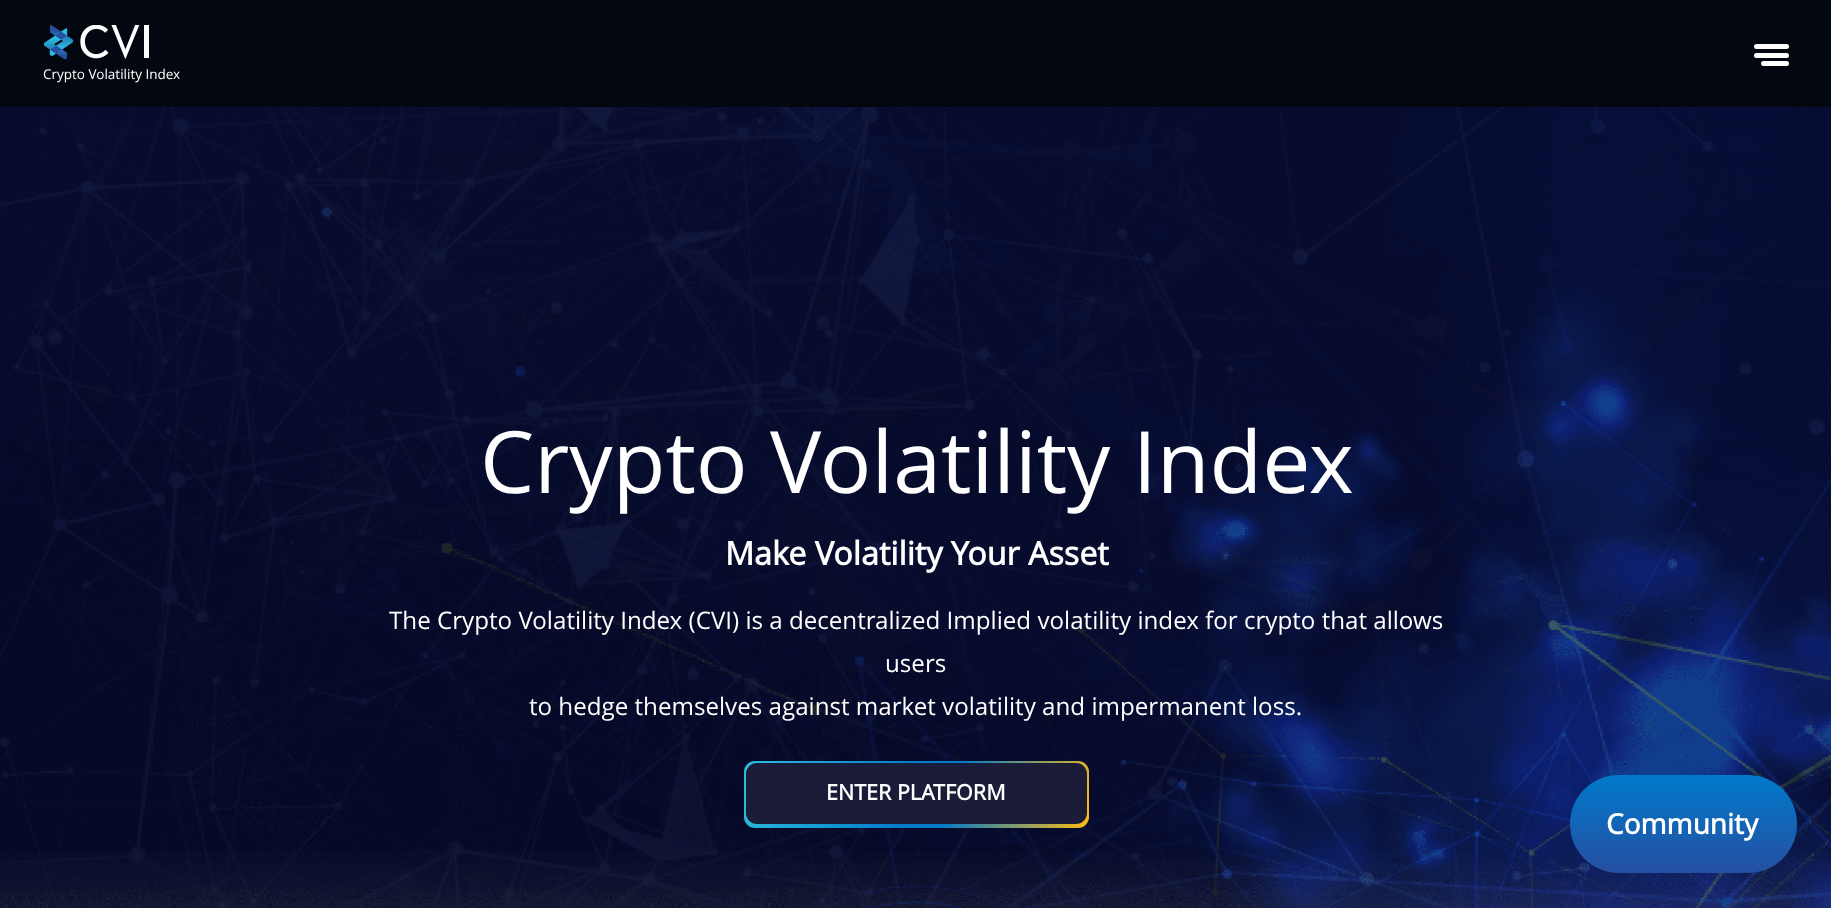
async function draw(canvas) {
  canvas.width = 1831
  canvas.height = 908
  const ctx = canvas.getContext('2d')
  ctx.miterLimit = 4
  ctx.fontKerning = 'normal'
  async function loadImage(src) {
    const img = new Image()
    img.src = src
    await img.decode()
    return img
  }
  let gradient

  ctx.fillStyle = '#fff'
  ctx.fillRect(0, 0, 1831, 908)
  ctx.fillStyle = '#03070f'
  ctx.fillRect(0, 0, 1831, 107)
  ctx.fillStyle = '#fff'
  ctx.beginPath()
  ctx.roundRect(1754, 44, 35, 5, 2.5)
  ctx.fill()
  ctx.beginPath()
  ctx.roundRect(1754, 53, 35, 5, 2.5)
  ctx.fill()
  ctx.beginPath()
  ctx.roundRect(1761, 61, 28, 5, 2.5)
  ctx.fill()
  ctx.drawImage(await loadImage('image0.png'), 44, 25, 105, 35)
  ctx.font = '13.5px Open Sans'
  ctx.fillText('Crypto Volatility Index', 43, 79)
  ctx.drawImage(await loadImage('image1.png'), 0, 107, 1831, 801)
  ctx.font = '86px Open Sans'
  ctx.fillText('Crypto Volatility Index', 480, 493)
  ctx.font = 'bold 32.25px Open Sans'
  ctx.fillText('Make Volatility Your Asset', 725, 565)
  ctx.font = '24.15px Open Sans'
  ctx.fillText('The Crypto Volatility Index (CVI) is a decentralized Implied volatility index for crypto that allows', 389, 629)
  ctx.fillText('users', 885, 672)
  ctx.fillText('to hedge themselves against market volatility and impermanent loss.', 529, 715)
  gradient = ctx.createLinearGradient(749, 743, 1083, 846)
  gradient.addColorStop(0.01, '#2bbede')
  gradient.addColorStop(0.49, '#007acb')
  gradient.addColorStop(0.59, '#007acb')
  gradient.addColorStop(0.99, '#f8ba15')
  ctx.fillStyle = gradient
  ctx.beginPath()
  ctx.roundRect(744, 761, 345, 67, 11)
  ctx.fill()
  ctx.fillStyle = '#1b1d38'
  ctx.beginPath()
  ctx.roundRect(746, 763, 341, 61, 11)
  ctx.fill()
  ctx.font = 'bold 21.5px Open Sans'
  ctx.fillStyle = '#fff'
  ctx.fillText('ENTER PLATFORM', 826, 800)
  ctx.drawImage(await loadImage('image2.png'), 824, 885, 184, 23)
  gradient = ctx.createLinearGradient(1684, 775, 1684, 873)
  gradient.addColorStop(0, '#007acb')
  gradient.addColorStop(1, '#264fa1')
  ctx.fillStyle = gradient
  ctx.beginPath()
  ctx.roundRect(1570, 775, 227, 98, 49)
  ctx.fill()
  ctx.font = 'bold 28px Open Sans'
  ctx.fillStyle = '#fff'
  ctx.fillText('Community', 1606, 834)
}

draw(document.querySelector('canvas'))
